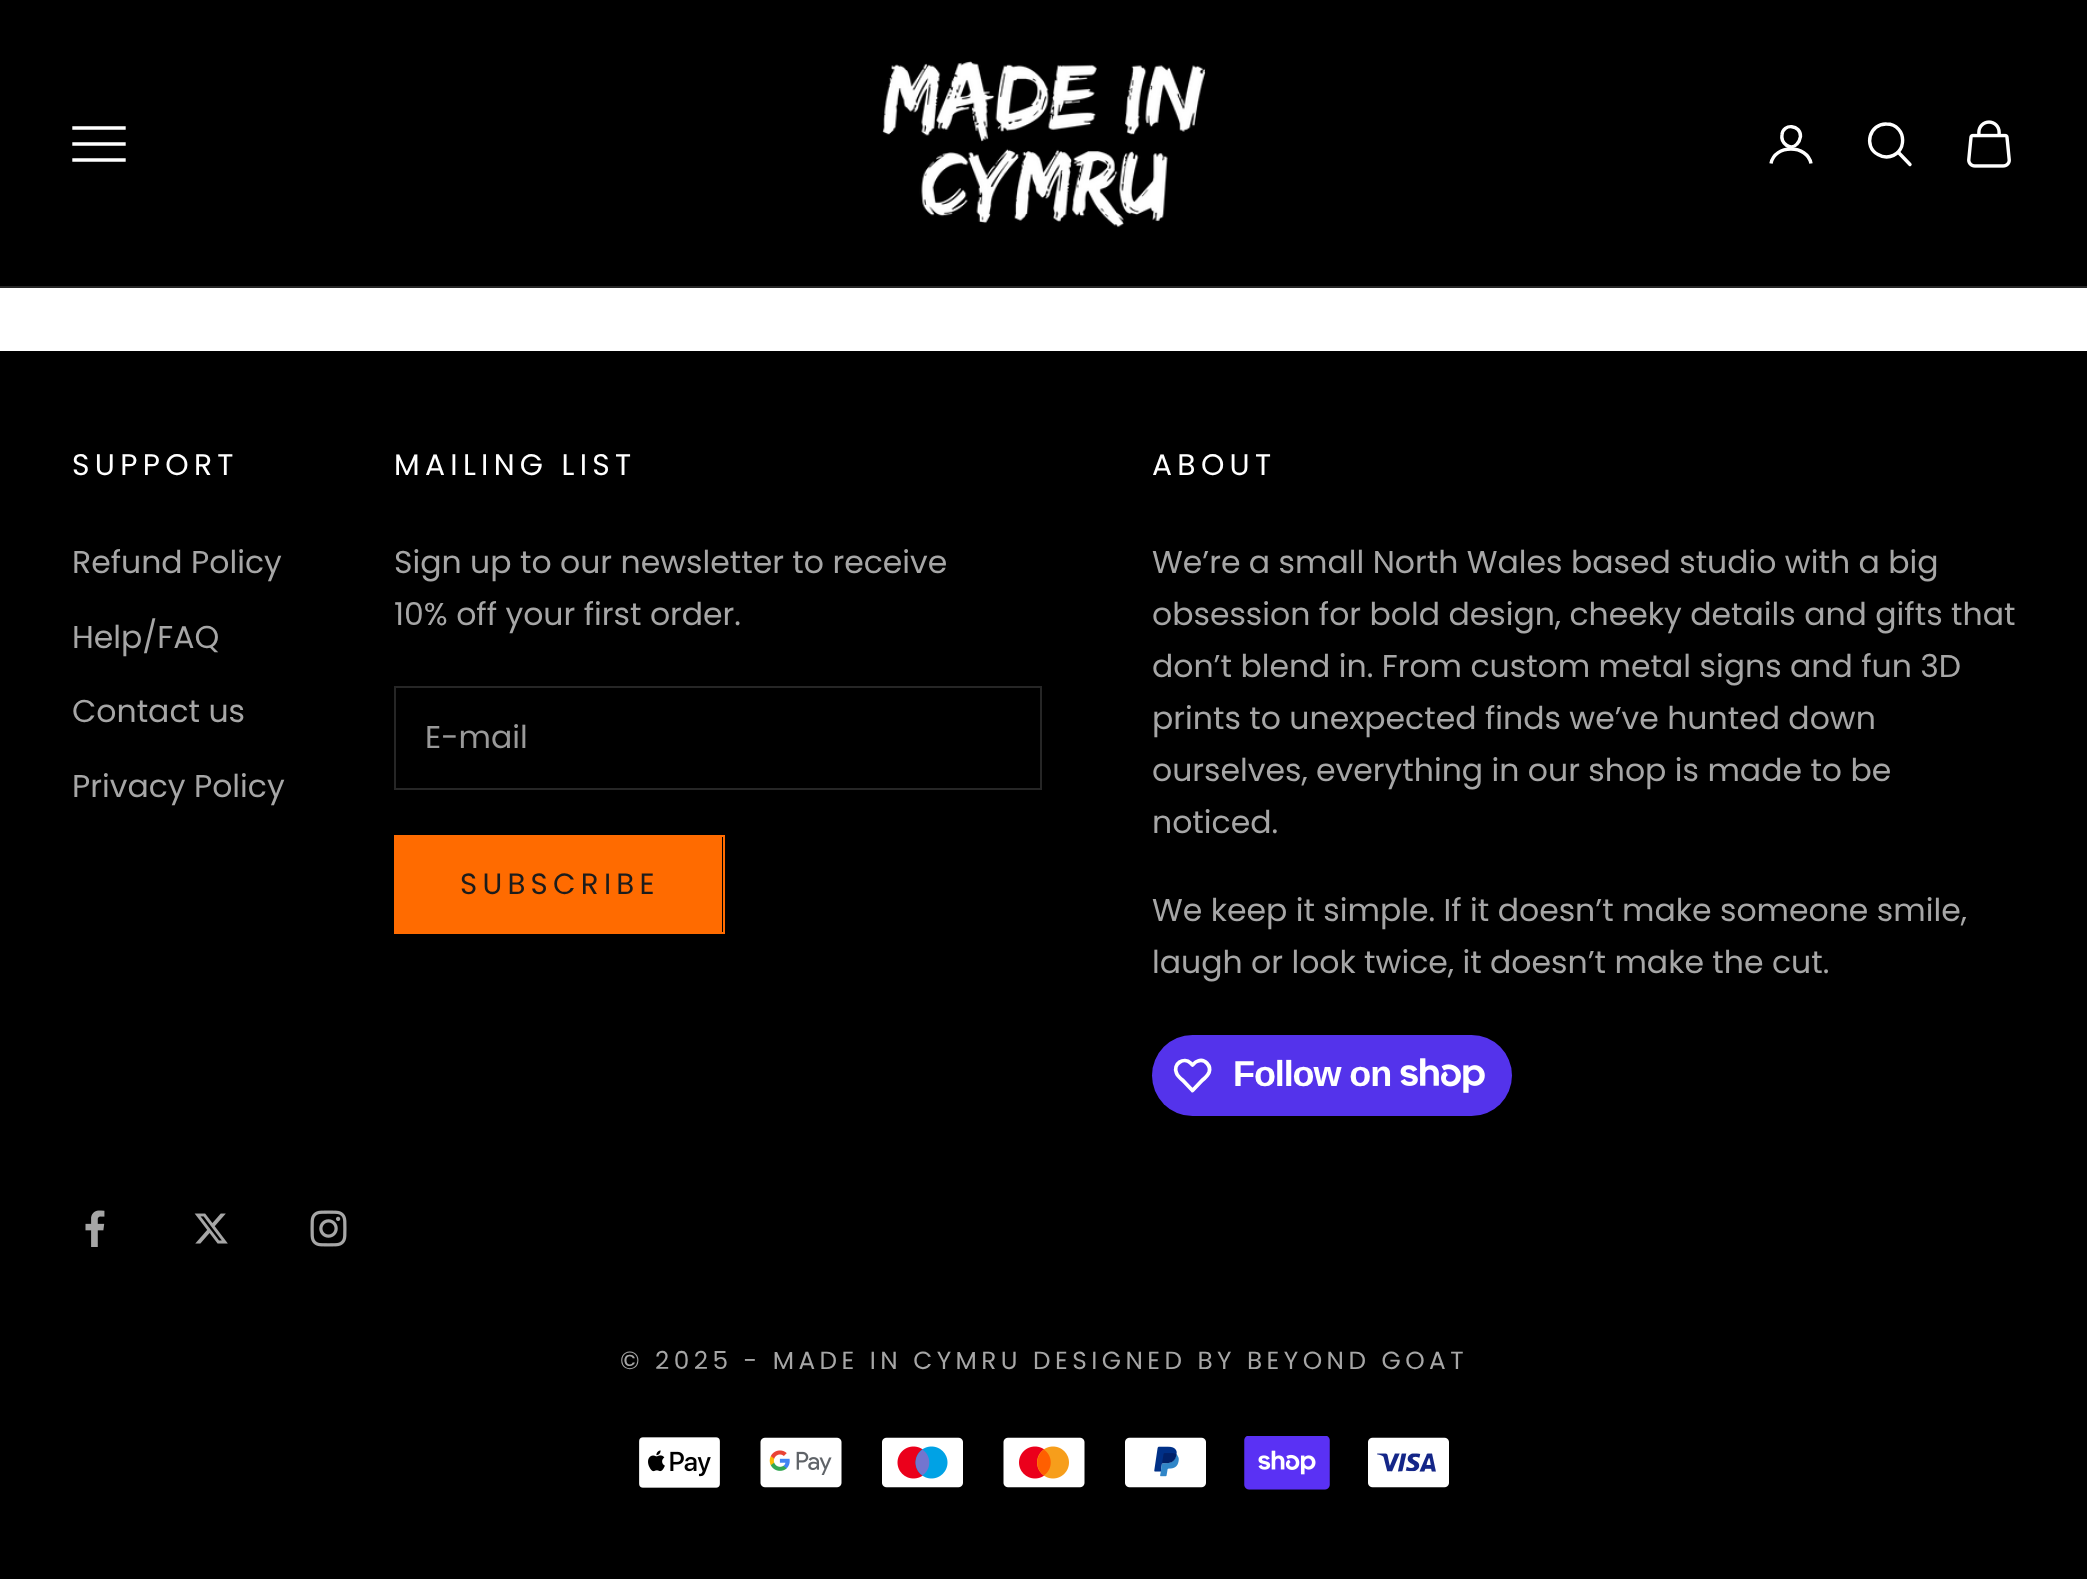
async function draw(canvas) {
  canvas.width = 2087
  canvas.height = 1579
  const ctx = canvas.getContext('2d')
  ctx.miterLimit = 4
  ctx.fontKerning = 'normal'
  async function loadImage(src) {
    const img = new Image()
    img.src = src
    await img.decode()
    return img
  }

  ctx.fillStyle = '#fff'
  ctx.fillRect(0, 0, 2087, 1579)
  ctx.fillStyle = '#000'
  ctx.fillRect(0, 0, 2087, 286)
  ctx.fillStyle = '#262626'
  ctx.fillRect(0, 286, 2087, 2)
  ctx.beginPath()
  ctx.moveTo(74, 160)
  ctx.lineTo(124, 160)
  ctx.moveTo(74, 144)
  ctx.lineTo(124, 144)
  ctx.moveTo(74, 128)
  ctx.lineTo(124, 128)
  ctx.strokeStyle = '#fff'
  ctx.lineWidth = 3.4
  ctx.lineCap = 'square'
  ctx.stroke()
  ctx.drawImage(await loadImage('image0.png'), 882, 61, 324, 167)
  ctx.beginPath()
  ctx.moveTo(1800.5, 136.5)
  ctx.bezierCurveTo(1800, 139.5, 1799, 142, 1797, 144)
  ctx.bezierCurveTo(1790.5, 151.5, 1780.5, 143, 1782, 134.5)
  ctx.bezierCurveTo(1783, 123, 1801, 124.5, 1800.5, 136.5)
  ctx.closePath()
  ctx.lineCap = 'round'
  ctx.lineJoin = 'round'
  ctx.stroke()
  ctx.beginPath()
  ctx.moveTo(1771, 163.5)
  ctx.bezierCurveTo(1774.5, 144, 1807.5, 144.5, 1811, 163.5)
  ctx.lineCap = 'butt'
  ctx.lineJoin = 'miter'
  ctx.stroke()
  ctx.beginPath()
  ctx.moveTo(1886.5, 124)
  ctx.bezierCurveTo(1869.5, 123.5, 1863, 146.5, 1878, 154.5)
  ctx.bezierCurveTo(1880.5, 156, 1883.5, 157, 1886.5, 157)
  ctx.bezierCurveTo(1908.5, 156, 1907.5, 124, 1886.5, 124)
  ctx.closePath()
  ctx.stroke()
  ctx.beginPath()
  ctx.moveTo(1898.5, 152.5)
  ctx.lineTo(1910, 164.5)
  ctx.lineCap = 'round'
  ctx.stroke()
  ctx.drawImage(await loadImage('image1.png'), 1967, 120, 44, 48)
  ctx.fillStyle = '#000'
  ctx.fillRect(0, 351, 2087, 1228)
  ctx.letterSpacing = '5.3px'
  ctx.font = '29.75px Poppins'
  ctx.fillStyle = '#fff'
  ctx.fillText('SUPPORT', 72, 475)
  ctx.letterSpacing = '0px'
  ctx.font = '31.5px Poppins'
  ctx.fillStyle = '#a6a6a6'
  ctx.fillText('Refund Policy', 72, 573)
  ctx.fillText('Help/FAQ', 72, 648)
  ctx.fillText('Contact us', 72, 722)
  ctx.fillText('Privacy Policy', 72, 797)
  ctx.letterSpacing = '5.3px'
  ctx.font = '29.75px Poppins'
  ctx.fillStyle = '#fff'
  ctx.fillText('MAILING LIST', 394, 475)
  ctx.letterSpacing = '0px'
  ctx.font = '31.5px Poppins'
  ctx.fillStyle = '#a6a6a6'
  ctx.fillText('Sign up to our newsletter to receive', 394, 573)
  ctx.fillText('10% off your first order.', 394, 625)
  ctx.strokeStyle = '#262626'
  ctx.lineWidth = 2
  ctx.strokeRect(395, 687, 646, 102)
  ctx.fillStyle = '#999'
  ctx.fillText('E-mail', 425, 748)
  ctx.fillStyle = '#ff6b00'
  ctx.fillRect(396, 837, 326, 95)
  ctx.strokeStyle = '#ff6b00'
  ctx.strokeRect(395, 836, 329, 97)
  ctx.letterSpacing = '5.25px'
  ctx.font = '29.25px Poppins'
  ctx.fillStyle = '#1c1c1c'
  ctx.fillText('SUBSCRIBE', 460, 894)
  ctx.letterSpacing = '5.3px'
  ctx.font = '29.75px Poppins'
  ctx.fillStyle = '#fff'
  ctx.fillText('ABOUT', 1152, 475)
  ctx.letterSpacing = '0px'
  ctx.font = '31.5px Poppins'
  ctx.fillStyle = '#a6a6a6'
  ctx.fillText('We’re a small North Wales based studio with a big', 1152, 573)
  ctx.fillText('obsession for bold design, cheeky details and gifts that', 1152, 625)
  ctx.fillText('don’t blend in. From custom metal signs and fun 3D', 1152, 677)
  ctx.fillText('prints to unexpected finds we’ve hunted down', 1152, 729)
  ctx.fillText('ourselves, everything in our shop is made to be', 1152, 781)
  ctx.fillText('noticed.', 1152, 833)
  ctx.fillText('We keep it simple. If it doesn’t make someone smile,', 1152, 921)
  ctx.fillText('laugh or look twice, it doesn’t make the cut.', 1152, 973)
  ctx.fillStyle = '#5433eb'
  ctx.beginPath()
  ctx.roundRect(1152, 1035, 360, 81, 40.5)
  ctx.fill()
  ctx.beginPath()
  ctx.moveTo(1190.5, 1063)
  ctx.lineTo(1192.5, 1065)
  ctx.bezierCurveTo(1194, 1063.5, 1195.5, 1061.5, 1198, 1061)
  ctx.bezierCurveTo(1205, 1058.5, 1211.5, 1066, 1209, 1072.5)
  ctx.bezierCurveTo(1207.5, 1076, 1204.5, 1078.5, 1202, 1080.5)
  ctx.lineTo(1192.5, 1090.5)
  ctx.lineTo(1183, 1080.5)
  ctx.bezierCurveTo(1180.5, 1078.5, 1177.5, 1076, 1176.5, 1073)
  ctx.bezierCurveTo(1172.5, 1064, 1184, 1056.5, 1190.5, 1063)
  ctx.closePath()
  ctx.strokeStyle = '#fff'
  ctx.lineWidth = 3.8
  ctx.lineCap = 'butt'
  ctx.lineJoin = 'round'
  ctx.stroke()
  ctx.letterSpacing = '-1.1px'
  ctx.font = 'bold 36px Liberation Sans'
  ctx.fillStyle = '#fff'
  ctx.fillText('Follow on', 1233, 1086)
  ctx.drawImage(await loadImage('image2.png'), 1400, 1058, 85, 35)
  ctx.drawImage(await loadImage('image3.png'), 85, 1210, 20, 37)
  ctx.drawImage(await loadImage('image4.png'), 194, 1213, 34, 31)
  ctx.drawImage(await loadImage('image5.png'), 310, 1210, 37, 37)
  ctx.letterSpacing = '4.45px'
  ctx.font = '24.75px Poppins'
  ctx.fillStyle = '#a6a6a6'
  ctx.fillText('© 2025 - MADE IN CYMRU DESIGNED BY BEYOND GOAT', 620, 1369)
  ctx.drawImage(await loadImage('image6.png'), 639, 1437, 81, 51)
  ctx.drawImage(await loadImage('image7.png'), 760, 1437, 82, 51)
  ctx.drawImage(await loadImage('image8.png'), 882, 1437, 81, 51)
  ctx.drawImage(await loadImage('image9.png'), 1003, 1437, 82, 51)
  ctx.drawImage(await loadImage('image10.png'), 1125, 1437, 81, 51)
  ctx.drawImage(await loadImage('image11.png'), 1244, 1436, 86, 54)
  ctx.drawImage(await loadImage('image12.png'), 1368, 1437, 81, 51)
}

draw(document.querySelector('canvas'))
